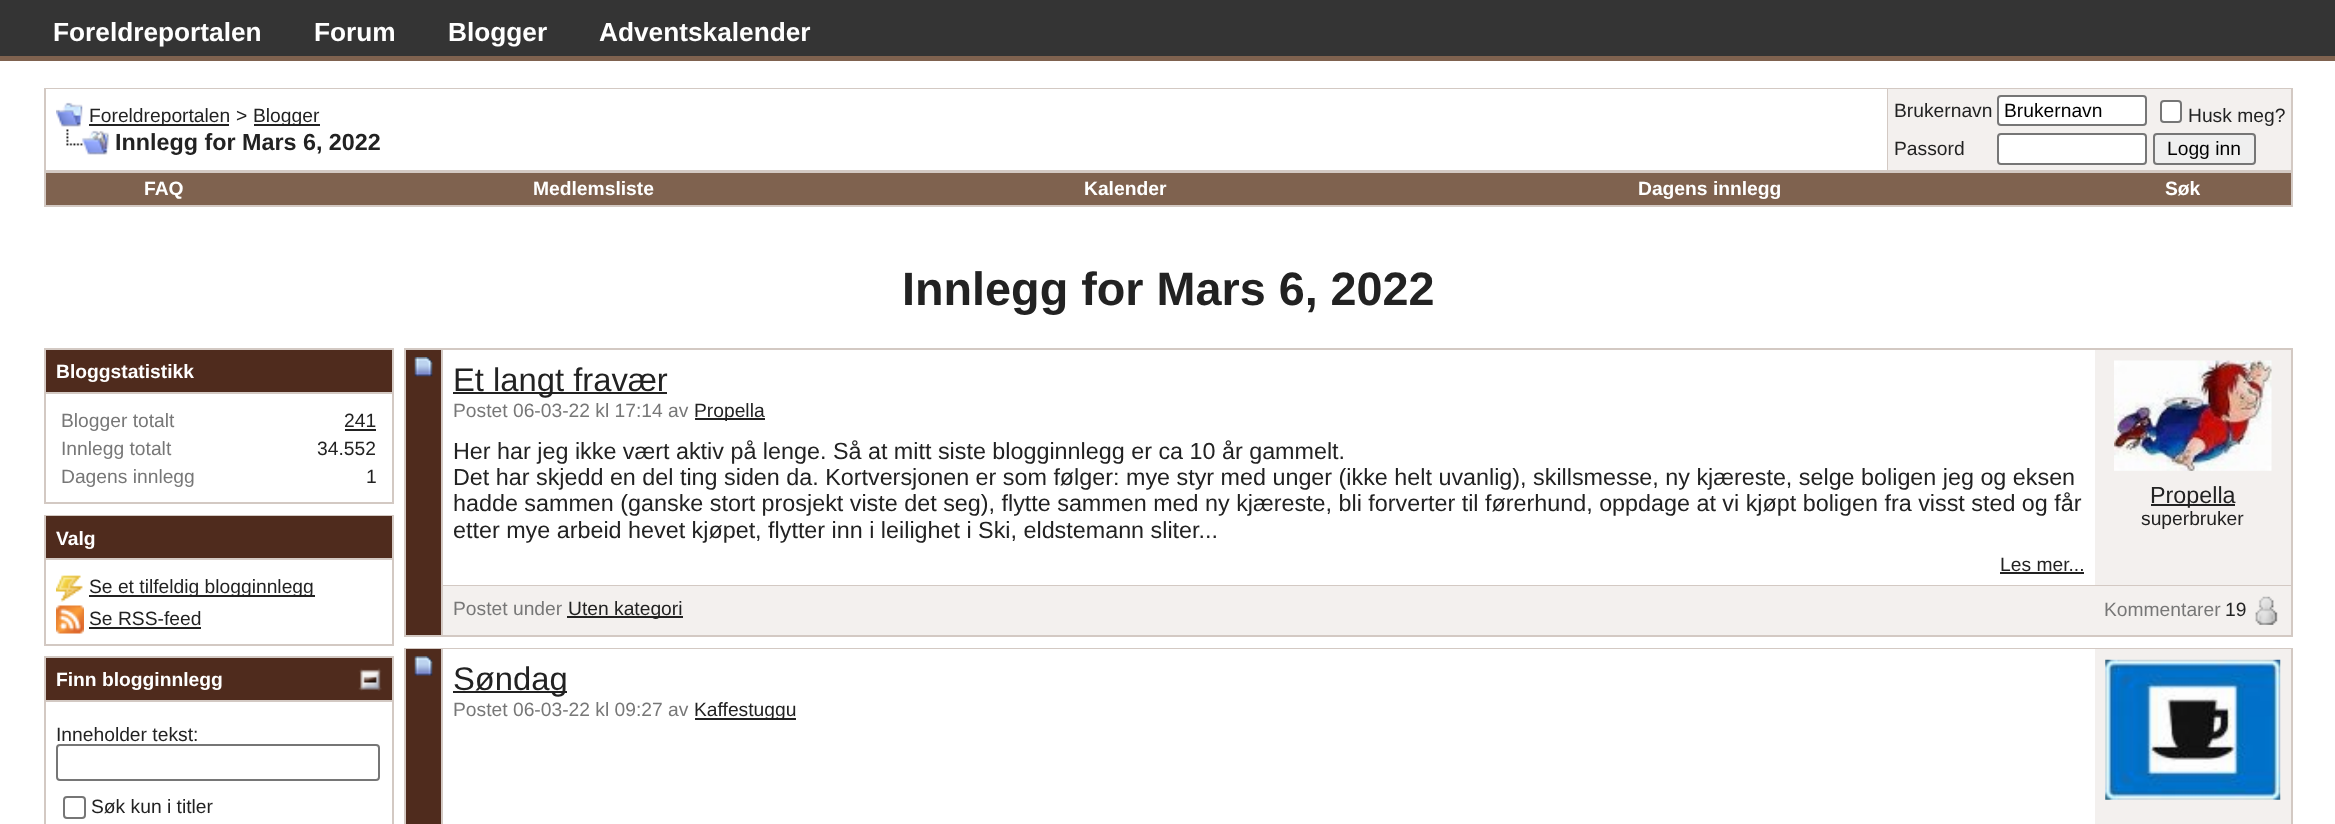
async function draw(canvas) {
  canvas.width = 2335
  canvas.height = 824
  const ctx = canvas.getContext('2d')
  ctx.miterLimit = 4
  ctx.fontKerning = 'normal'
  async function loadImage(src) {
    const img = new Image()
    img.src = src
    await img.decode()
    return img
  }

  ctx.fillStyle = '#fff'
  ctx.fillRect(0, 0, 2335, 824)
  ctx.fillStyle = '#343434'
  ctx.fillRect(0, 0, 2335, 56)
  ctx.fillStyle = '#7f624f'
  ctx.fillRect(0, 56, 2335, 5)
  ctx.font = 'bold 26.25px Liberation Sans'
  ctx.fillStyle = '#fff'
  ctx.fillText('Foreldreportalen', 53, 41)
  ctx.fillText('Forum', 314, 41)
  ctx.fillText('Blogger', 448, 41)
  ctx.fillText('Adventskalender', 599, 41)
  ctx.fillStyle = '#d3c9c3'
  ctx.fillRect(44, 88, 2249, 119)
  ctx.fillStyle = '#fff'
  ctx.fillRect(46, 89, 1841, 81)
  ctx.drawImage(await loadImage('image0.png'), 56, 102, 27, 25)
  ctx.fillStyle = '#222'
  ctx.fillRect(89, 124, 140, 2)
  ctx.font = '19.25px Liberation Sans'
  ctx.fillText('Foreldreportalen', 89, 122)
  ctx.fillText('>', 236, 122)
  ctx.fillRect(254, 124, 66, 2)
  ctx.fillText('Blogger', 253, 122)
  ctx.drawImage(await loadImage('image1.png'), 66, 129, 43, 26)
  ctx.font = 'bold 23.33px Liberation Sans'
  ctx.fillText('Innlegg for Mars 6, 2022', 115, 150)
  ctx.fillStyle = '#f3f0ee'
  ctx.fillRect(1888, 89, 403, 81)
  ctx.font = '19.25px Liberation Sans'
  ctx.fillStyle = '#222'
  ctx.fillText('Brukernavn', 1894, 117)
  ctx.fillStyle = '#fff'
  ctx.beginPath()
  ctx.roundRect(1998, 96, 148, 29, 3)
  ctx.fill()
  ctx.strokeStyle = '#767676'
  ctx.lineWidth = 2
  ctx.stroke()
  ctx.fillStyle = '#000'
  ctx.fillText('Brukernavn', 2004, 117)
  ctx.fillStyle = '#fff'
  ctx.beginPath()
  ctx.roundRect(2161, 101, 20, 21, 3)
  ctx.fill()
  ctx.stroke()
  ctx.fillStyle = '#222'
  ctx.fillText('Husk meg?', 2188, 122)
  ctx.fillText('Passord', 1894, 155)
  ctx.fillStyle = '#fff'
  ctx.beginPath()
  ctx.roundRect(1998, 134, 148, 30, 3)
  ctx.fill()
  ctx.stroke()
  ctx.fillStyle = '#efefef'
  ctx.beginPath()
  ctx.roundRect(2154, 134, 101, 30, 3)
  ctx.fill()
  ctx.stroke()
  ctx.fillStyle = '#000'
  ctx.fillText('Logg inn', 2167, 155)
  ctx.fillStyle = '#7f624f'
  ctx.fillRect(46, 173, 2245, 32)
  ctx.font = 'bold 19.25px Liberation Sans'
  ctx.fillStyle = '#fff'
  ctx.fillText('FAQ', 144, 195)
  ctx.fillText('Medlemsliste', 533, 195)
  ctx.fillText('Kalender', 1084, 195)
  ctx.fillText('Dagens innlegg', 1638, 195)
  ctx.fillText('Søk', 2165, 195)
  ctx.font = 'bold 46.75px Liberation Sans'
  ctx.fillStyle = '#222'
  ctx.fillText('Innlegg for Mars 6, 2022', 902, 305)
  ctx.fillStyle = '#d3c9c3'
  ctx.fillRect(44, 348, 350, 156)
  ctx.fillStyle = '#4f2b1d'
  ctx.fillRect(46, 350, 346, 42)
  ctx.font = 'bold 19.25px Liberation Sans'
  ctx.fillStyle = '#fff'
  ctx.fillText('Bloggstatistikk', 56, 378)
  ctx.fillRect(46, 394, 346, 108)
  ctx.font = '19.25px Liberation Sans'
  ctx.fillStyle = '#777'
  ctx.fillText('Blogger totalt', 61, 427)
  ctx.fillStyle = '#222'
  ctx.fillText('241', 344, 427)
  ctx.fillRect(345, 429, 31, 2)
  ctx.fillStyle = '#777'
  ctx.fillText('Innlegg totalt', 61, 455)
  ctx.fillStyle = '#222'
  ctx.fillText('34.552', 317, 455)
  ctx.fillStyle = '#777'
  ctx.fillText('Dagens innlegg', 61, 483)
  ctx.fillStyle = '#222'
  ctx.fillText('1', 366, 483)
  ctx.fillStyle = '#d3c9c3'
  ctx.fillRect(44, 515, 350, 131)
  ctx.fillStyle = '#4f2b1d'
  ctx.fillRect(46, 516, 346, 42)
  ctx.font = 'bold 19.25px Liberation Sans'
  ctx.fillStyle = '#fff'
  ctx.fillText('Valg', 56, 545)
  ctx.fillRect(46, 560, 346, 84)
  ctx.drawImage(await loadImage('image2.png'), 56, 575, 27, 27)
  ctx.fillStyle = '#222'
  ctx.fillRect(89, 595, 226, 2)
  ctx.font = '19.25px Liberation Sans'
  ctx.fillText('Se et tilfeldig blogginnlegg', 89, 593)
  ctx.drawImage(await loadImage('image3.png'), 56, 605, 28, 29)
  ctx.fillText('Se RSS-feed', 89, 625)
  ctx.fillRect(89, 627, 112, 2)
  ctx.fillStyle = '#d3c9c3'
  ctx.fillRect(44, 656, 350, 168)
  ctx.fillStyle = '#4f2b1d'
  ctx.fillRect(46, 658, 346, 42)
  ctx.font = 'bold 19.25px Liberation Sans'
  ctx.fillStyle = '#fff'
  ctx.fillText('Finn blogginnlegg', 56, 686)
  ctx.drawImage(await loadImage('image4.png'), 358, 668, 24, 23)
  ctx.fillRect(46, 702, 346, 122)
  ctx.font = '19.25px Liberation Sans'
  ctx.fillStyle = '#222'
  ctx.fillText('Inneholder tekst:', 56, 741)
  ctx.beginPath()
  ctx.roundRect(57, 745, 322, 35, 3)
  ctx.stroke()
  ctx.beginPath()
  ctx.roundRect(64, 797, 21, 21, 3)
  ctx.stroke()
  ctx.fillText('Søk kun i titler', 91, 813)
  ctx.fillStyle = '#d3c9c3'
  ctx.fillRect(404, 348, 1889, 289)
  ctx.fillStyle = '#4f2b1d'
  ctx.fillRect(406, 350, 35, 285)
  ctx.drawImage(await loadImage('image5.png'), 414, 357, 19, 20)
  ctx.fillStyle = '#fff'
  ctx.fillRect(443, 350, 1652, 235)
  ctx.fillStyle = '#222'
  ctx.fillRect(453, 392, 214, 2)
  ctx.font = '32.75px Liberation Sans'
  ctx.fillText('Et langt fravær', 453, 391)
  ctx.font = '19.25px Liberation Sans'
  ctx.fillStyle = '#777'
  ctx.fillText('Postet 06-03-22 kl 17:14 av', 453, 417)
  ctx.fillStyle = '#222'
  ctx.fillRect(695, 418, 70, 2)
  ctx.fillText('Propella', 694, 417)
  ctx.font = '23.33px Liberation Sans'
  ctx.fillText('Her har jeg ikke vært aktiv på lenge. Så at mitt siste blogginnlegg er ca 10 år gammelt.', 453, 459)
  ctx.fillText('Det har skjedd en del ting siden da. Kortversjonen er som følger: mye styr med unger (ikke helt uvanlig), skillsmesse, ny kjæreste, selge boligen jeg og eksen', 453, 485)
  ctx.fillText('hadde sammen (ganske stort prosjekt viste det seg), flytte sammen med ny kjæreste, bli forverter til førerhund, oppdage at vi kjøpt boligen fra visst sted og får', 453, 511)
  ctx.fillText('etter mye arbeid hevet kjøpet, flytter inn i leilighet i Ski, eldstemann sliter...', 453, 538)
  ctx.font = '19.25px Liberation Sans'
  ctx.fillText('Les mer...', 2000, 571)
  ctx.fillRect(2000, 572, 84, 2)
  ctx.fillStyle = '#f3f0ee'
  ctx.fillRect(2095, 350, 196, 235)
  ctx.drawImage(await loadImage('image6.png'), 2114, 360, 158, 111)
  ctx.fillStyle = '#222'
  ctx.fillRect(2151, 504, 84, 2)
  ctx.font = '23.33px Liberation Sans'
  ctx.fillText('Propella', 2150, 503)
  ctx.font = '19.25px Liberation Sans'
  ctx.fillText('superbruker', 2141, 525)
  ctx.fillStyle = '#f3f0ee'
  ctx.fillRect(443, 586, 1848, 49)
  ctx.fillStyle = '#777'
  ctx.fillText('Postet under', 453, 615)
  ctx.fillStyle = '#222'
  ctx.fillRect(567, 616, 116, 2)
  ctx.fillText('Uten kategori', 568, 615)
  ctx.fillStyle = '#777'
  ctx.fillText('Kommentarer', 2104, 616)
  ctx.fillStyle = '#222'
  ctx.fillText('19', 2225, 616)
  ctx.drawImage(await loadImage('image7.png'), 2255, 596, 23, 29)
  ctx.fillStyle = '#d3c9c3'
  ctx.fillRect(404, 648, 1889, 176)
  ctx.fillStyle = '#4f2b1d'
  ctx.fillRect(406, 649, 35, 175)
  ctx.drawImage(await loadImage('image8.png'), 414, 656, 19, 20)
  ctx.fillStyle = '#fff'
  ctx.fillRect(443, 649, 1652, 175)
  ctx.fillStyle = '#222'
  ctx.fillRect(453, 691, 114, 2)
  ctx.font = '32.75px Liberation Sans'
  ctx.fillText('Søndag', 453, 690)
  ctx.font = '19.25px Liberation Sans'
  ctx.fillStyle = '#777'
  ctx.fillText('Postet 06-03-22 kl 09:27 av', 453, 716)
  ctx.fillStyle = '#222'
  ctx.fillRect(695, 718, 101, 2)
  ctx.fillText('Kaffestuggu', 694, 716)
  ctx.fillStyle = '#f3f0ee'
  ctx.fillRect(2095, 649, 196, 175)
  ctx.drawImage(await loadImage('image9.png'), 2105, 659, 176, 141)
}

draw(document.querySelector('canvas'))
